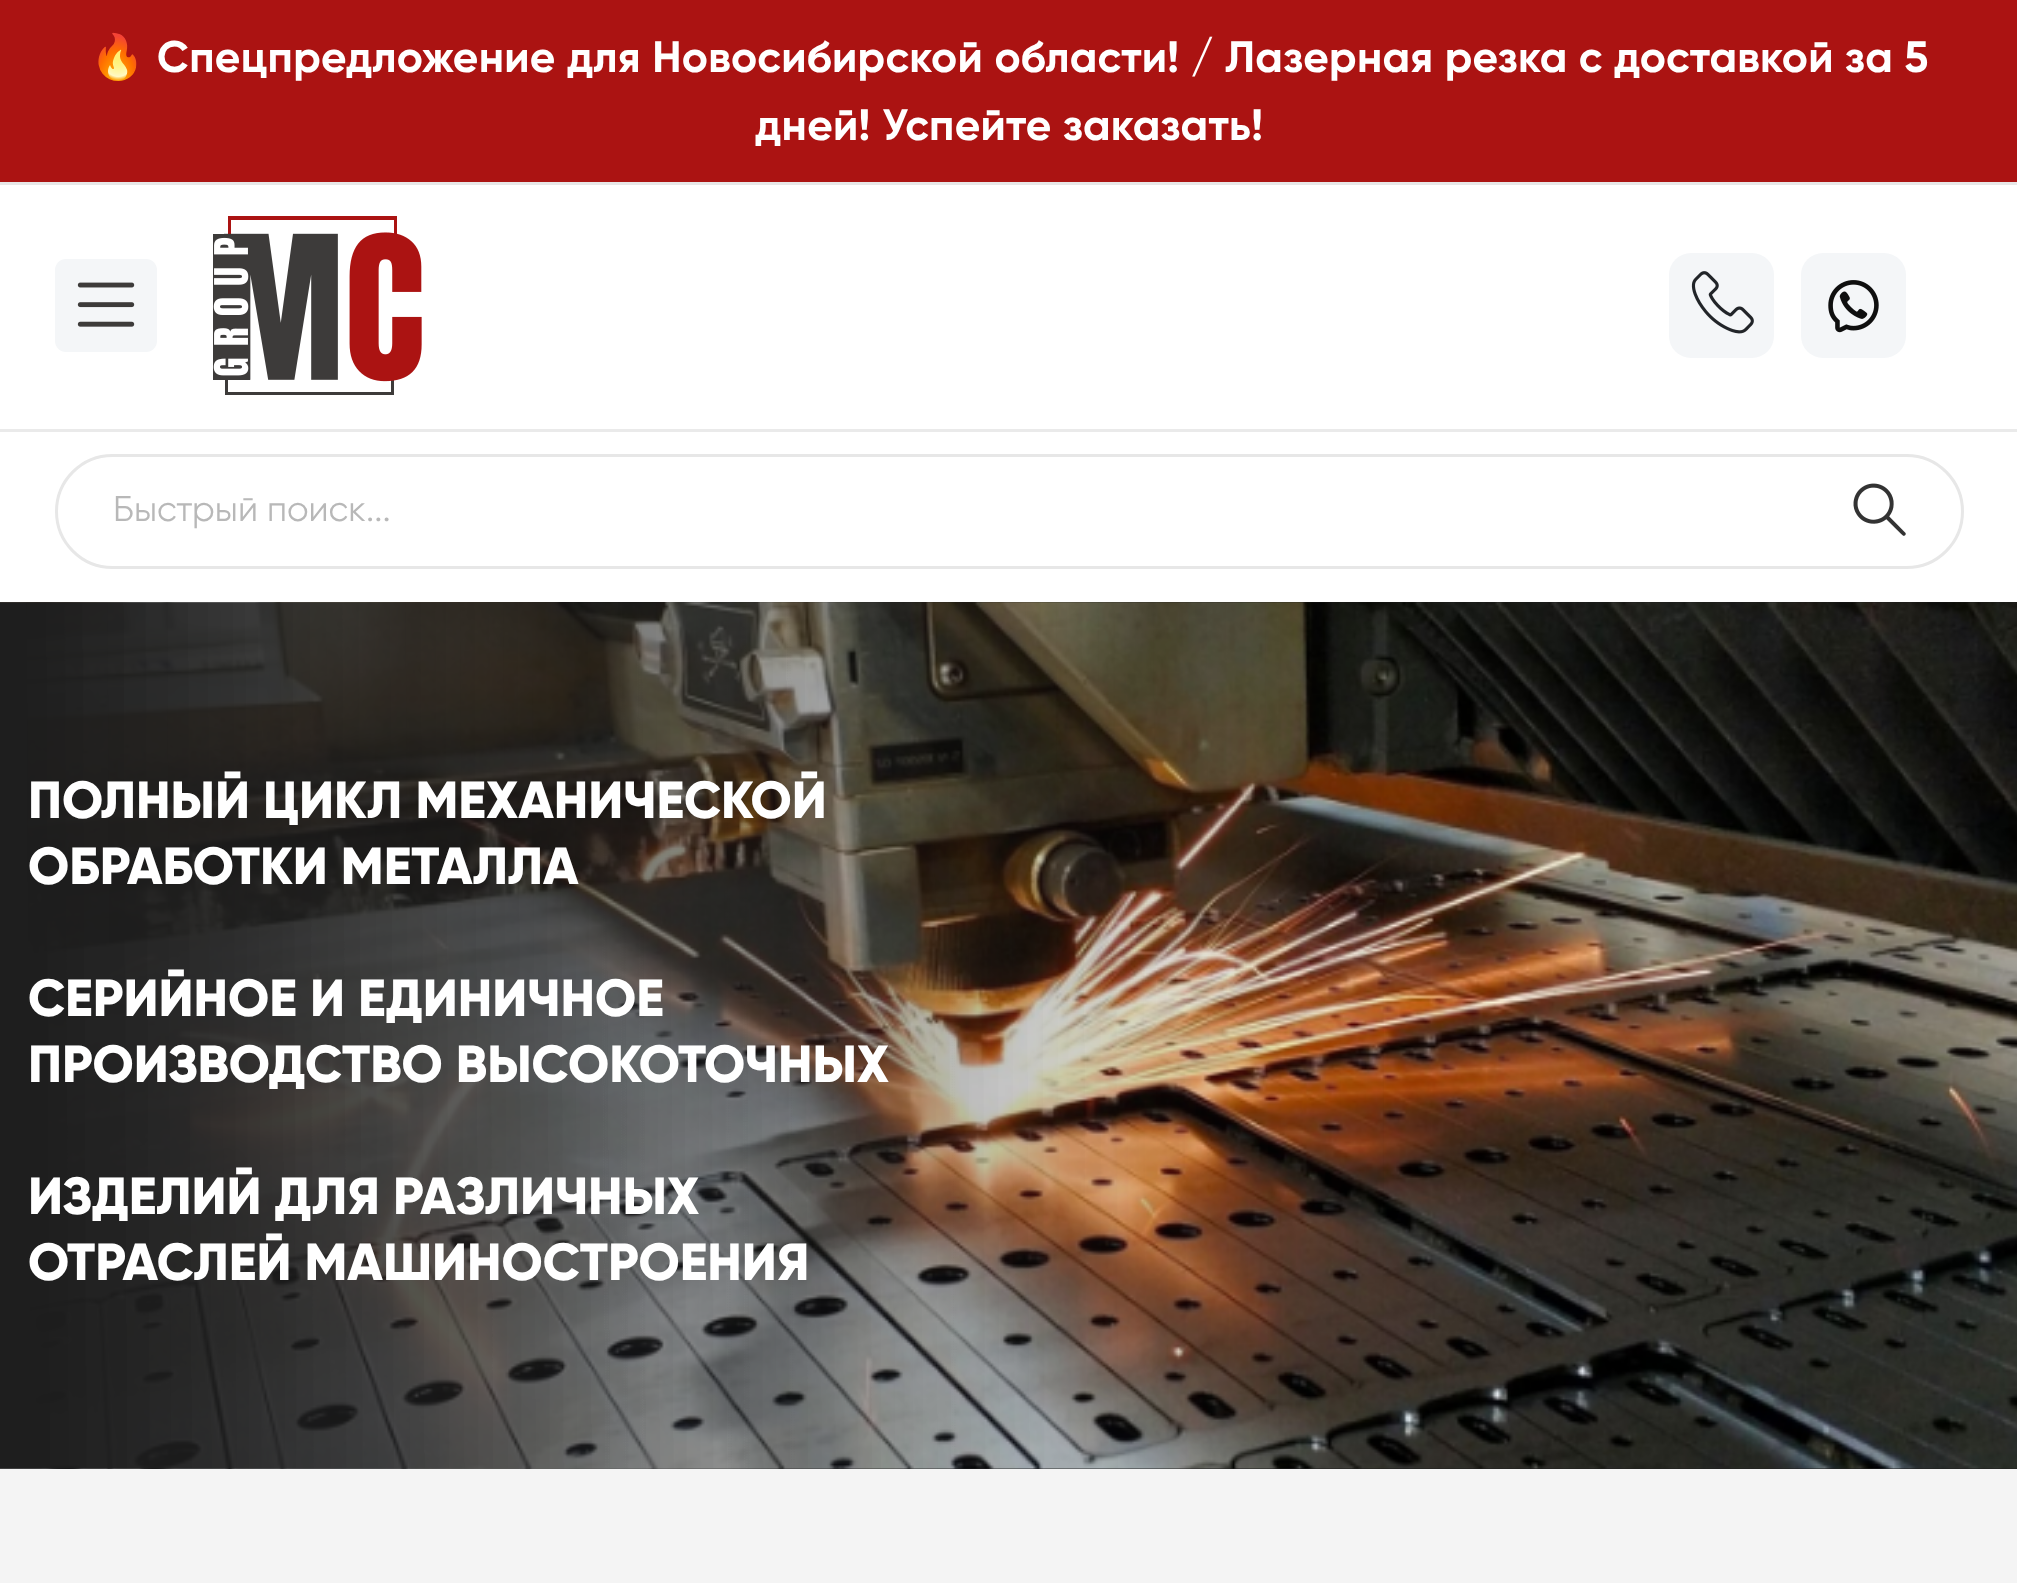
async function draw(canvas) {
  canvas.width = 2017
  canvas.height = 1583
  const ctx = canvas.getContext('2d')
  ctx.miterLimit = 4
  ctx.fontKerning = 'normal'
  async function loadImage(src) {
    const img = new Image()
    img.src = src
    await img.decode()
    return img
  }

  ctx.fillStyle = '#ab1312'
  ctx.fillRect(0, 0, 2017, 1583)
  ctx.letterSpacing = '0.28px'
  ctx.font = 'bold 44px Noto Color Emoji'
  ctx.fillStyle = '#fff'
  ctx.fillText('🔥', 90, 72)
  ctx.font = 'bold 44px Gilroy'
  ctx.fillText('Спецпредложение для Новосибирской области! / Лазерная резка с доставкой за 5', 157, 72)
  ctx.fillText('дней! Успейте заказать!', 755, 140)
  ctx.fillRect(0, 185, 2017, 417)
  ctx.fillStyle = '#e7e7e7'
  ctx.fillRect(0, 182, 2017, 3)
  ctx.fillStyle = '#f4f6f8'
  ctx.beginPath()
  ctx.roundRect(55, 259, 102, 93, 11)
  ctx.fill()
  ctx.drawImage(await loadImage('image0.png'), 77, 282, 58, 45)
  ctx.drawImage(await loadImage('image1.png'), 213, 216, 209, 179)
  ctx.beginPath()
  ctx.roundRect(1669, 253, 105, 105, 22)
  ctx.fill()
  ctx.drawImage(await loadImage('image2.png'), 1691, 271, 63, 63)
  ctx.beginPath()
  ctx.roundRect(1801, 253, 105, 105, 22)
  ctx.fill()
  ctx.drawImage(await loadImage('image3.png'), 1828, 280, 51, 53)
  ctx.fillStyle = '#eaeaea'
  ctx.fillRect(0, 429, 2017, 3)
  ctx.beginPath()
  ctx.roundRect(56.5, 455.5, 1906, 112, 56)
  ctx.strokeStyle = '#e7e7e7'
  ctx.lineWidth = 3
  ctx.stroke()
  ctx.letterSpacing = '0px'
  ctx.font = '35.75px Gilroy'
  ctx.fillStyle = '#b8b8b8'
  ctx.fillText('Быстрый поиск...', 113, 521)
  ctx.drawImage(await loadImage('image4.png'), 1853, 483, 53, 53)
  ctx.fillStyle = '#212121'
  ctx.fillRect(0, 602, 2017, 867)
  ctx.drawImage(await loadImage('image5.png'), 0, 602, 2017, 867)
  ctx.drawImage(await loadImage('image6.png'), 0, 602, 1384, 867)
  ctx.font = '800 52.25px Gilroy'
  ctx.fillStyle = '#fff'
  ctx.fillText('ПОЛНЫЙ ЦИКЛ МЕХАНИЧЕСКОЙ', 28, 818)
  ctx.fillText('ОБРАБОТКИ МЕТАЛЛА', 28, 884)
  ctx.fillText('СЕРИЙНОЕ И ЕДИНИЧНОЕ', 28, 1016)
  ctx.fillText('ПРОИЗВОДСТВО ВЫСОКОТОЧНЫХ', 28, 1082)
  ctx.fillText('ИЗДЕЛИЙ ДЛЯ РАЗЛИЧНЫХ', 28, 1214)
  ctx.fillText('ОТРАСЛЕЙ МАШИНОСТРОЕНИЯ', 28, 1280)
  ctx.fillStyle = '#f4f4f4'
  ctx.fillRect(0, 1469, 2017, 114)
}

draw(document.querySelector('canvas'))
